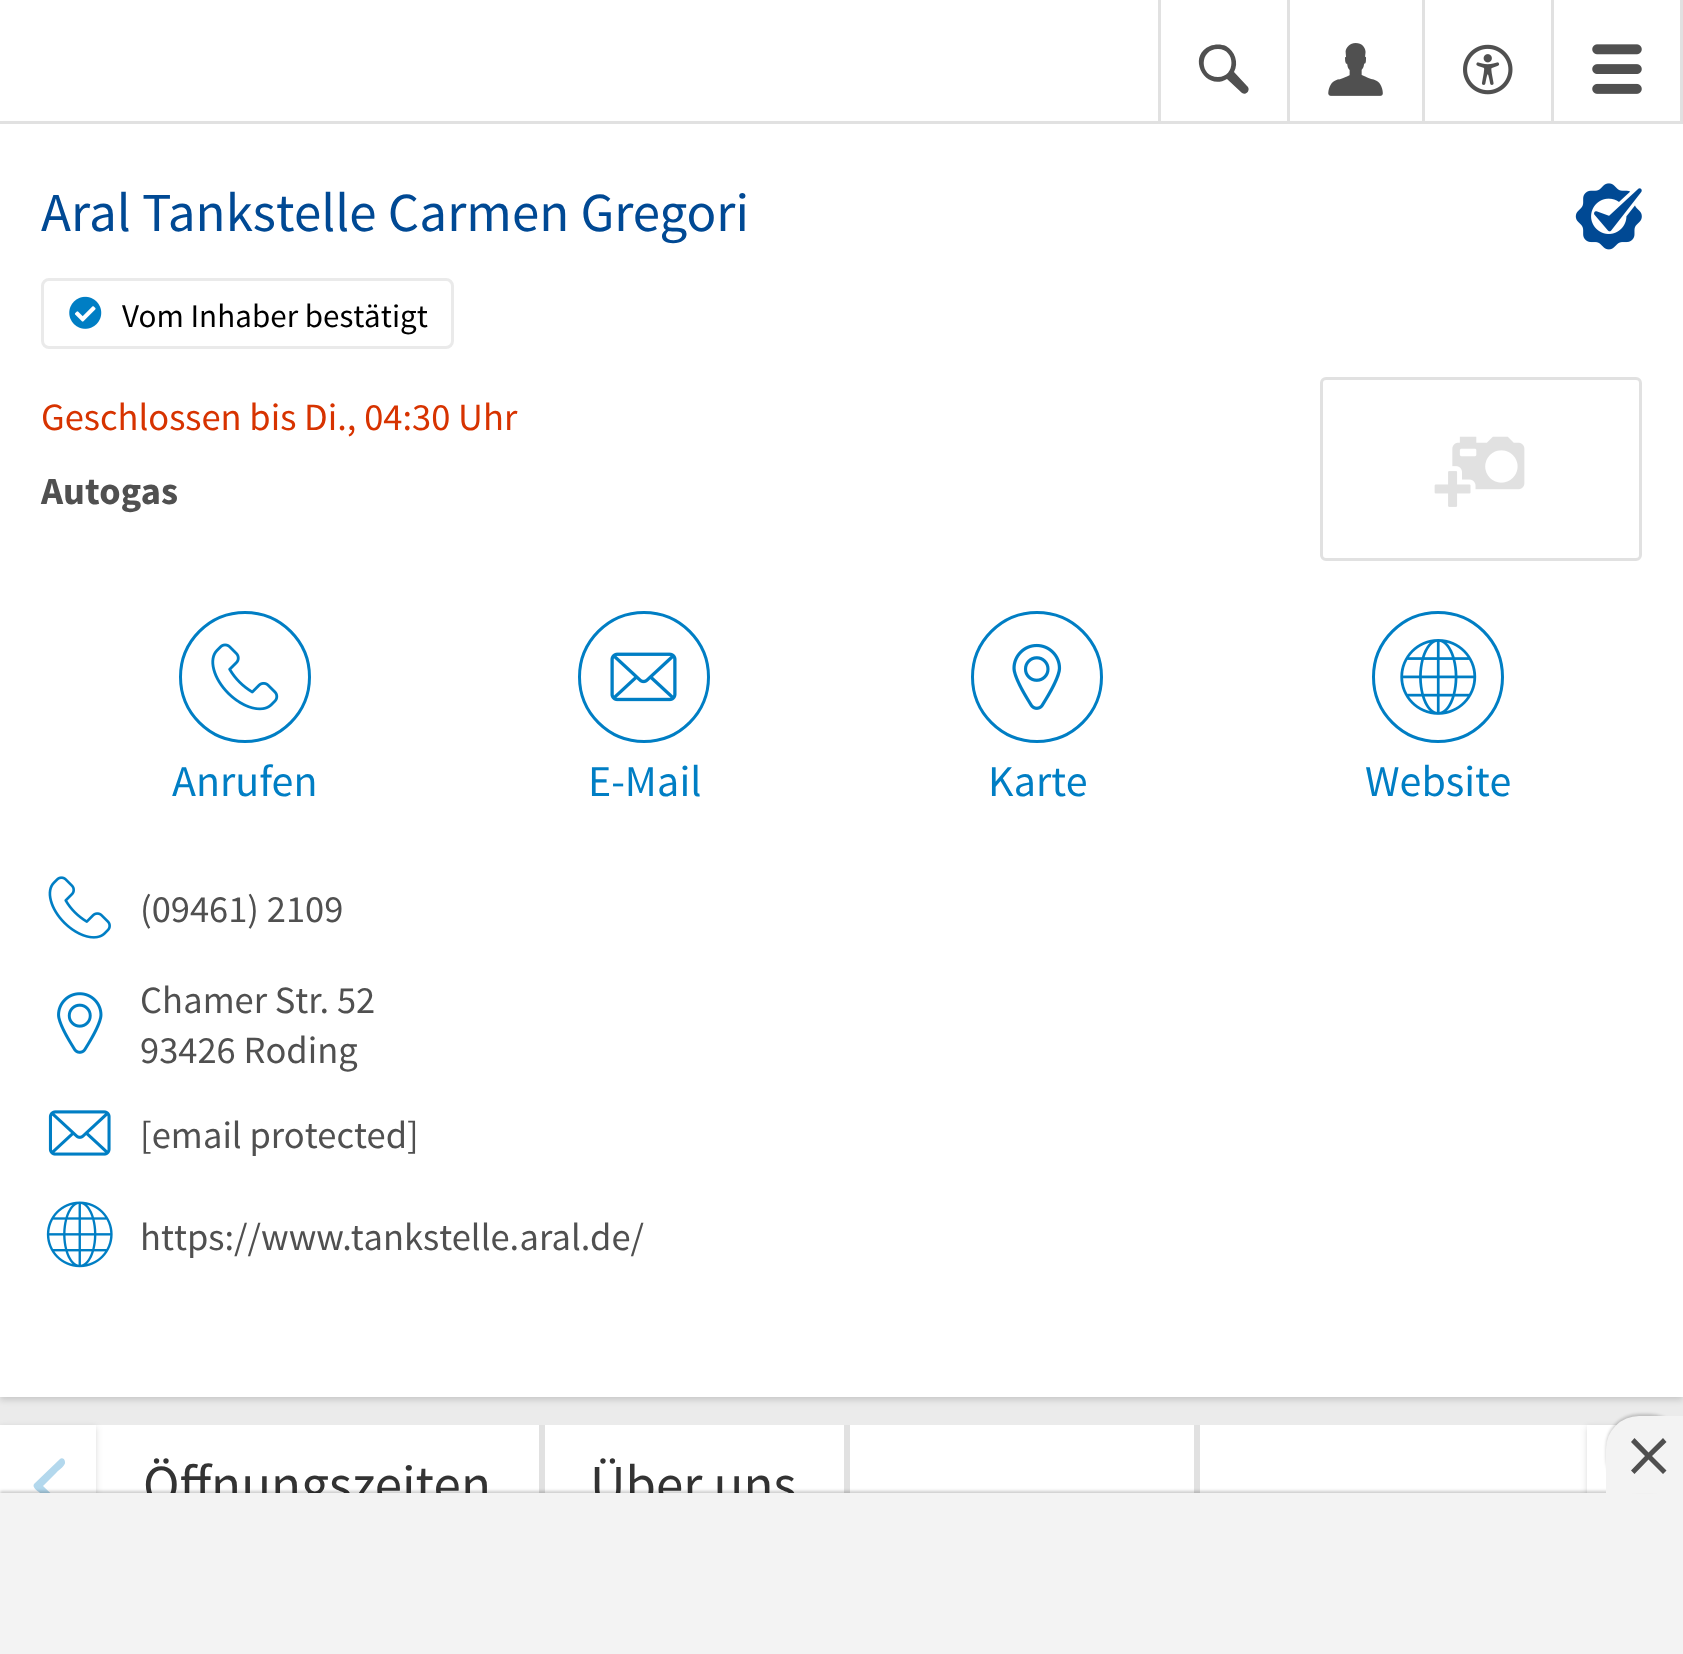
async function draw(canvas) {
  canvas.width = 1683
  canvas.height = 1654
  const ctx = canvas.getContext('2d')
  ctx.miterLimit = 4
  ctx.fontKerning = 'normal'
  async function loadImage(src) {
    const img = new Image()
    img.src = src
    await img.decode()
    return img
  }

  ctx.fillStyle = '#fff'
  ctx.fillRect(0, 0, 1683, 1654)
  ctx.fillStyle = '#ebebeb'
  ctx.fillRect(0, 1397, 1683, 28)
  ctx.fillStyle = '#00000026'
  ctx.filter = 'blur(3px)'
  ctx.beginPath()
  ctx.rect(0, 127, 1683, 1273)
  ctx.fill()
  ctx.filter = 'none'
  ctx.fillStyle = '#e1e1e1'
  ctx.fillRect(0, 121, 1683, 3)
  ctx.fillRect(1158, 0, 3, 124)
  ctx.fillRect(1287, 0, 3, 124)
  ctx.fillStyle = '#505050'
  ctx.beginPath()
  ctx.moveTo(1247, 86)
  ctx.bezierCurveTo(1251, 89, 1247, 96, 1242, 93)
  ctx.lineTo(1227, 79)
  ctx.bezierCurveTo(1205, 92, 1186, 56, 1210, 46)
  ctx.bezierCurveTo(1215, 44, 1221, 44, 1226, 46)
  ctx.bezierCurveTo(1235, 51, 1239, 63, 1234, 72)
  ctx.closePath()
  ctx.moveTo(1218, 49)
  ctx.bezierCurveTo(1199, 49, 1199, 77, 1218, 77)
  ctx.bezierCurveTo(1236, 77, 1236, 49, 1218, 49)
  ctx.closePath()
  ctx.fill()
  ctx.fillStyle = '#e1e1e1'
  ctx.fillRect(1422, 0, 3, 124)
  ctx.drawImage(await loadImage('image0.png'), 1328, 43, 55, 53)
  ctx.fillRect(1551, 0, 3, 124)
  ctx.drawImage(await loadImage('image1.png'), 1463, 44, 50, 51)
  ctx.fillRect(1680, 0, 3, 124)
  ctx.drawImage(await loadImage('image2.png'), 1592, 44, 50, 50)
  ctx.fillStyle = '#fff'
  ctx.fillRect(0, 124, 1683, 1273)
  ctx.font = '55px Source Sans Pro'
  ctx.fillStyle = '#004994'
  ctx.fillText('Aral Tankstelle Carmen Gregori', 41, 231)
  ctx.drawImage(await loadImage('image3.png'), 1575, 183, 67, 67)
  ctx.beginPath()
  ctx.roundRect(42.5, 279.5, 410, 68, 6.5)
  ctx.strokeStyle = '#eaeaea'
  ctx.lineWidth = 3
  ctx.stroke()
  ctx.drawImage(await loadImage('image4.png'), 69, 296, 33, 33)
  ctx.font = '33px Source Sans Pro'
  ctx.fillStyle = '#000'
  ctx.fillText('Vom Inhaber bestätigt', 122, 327)
  ctx.font = '38.5px Source Sans Pro'
  ctx.fillStyle = '#d73300'
  ctx.fillText('Geschlossen bis Di., 04:30 Uhr', 41, 430)
  ctx.font = 'bold 38.5px Source Sans Pro'
  ctx.fillStyle = '#505050'
  ctx.fillText('Autogas', 41, 504)
  ctx.beginPath()
  ctx.roundRect(1321.5, 378.5, 319, 181, 4.5)
  ctx.strokeStyle = '#e1e1e1'
  ctx.stroke()
  ctx.drawImage(await loadImage('image5.png'), 1434, 436, 91, 71)
  ctx.beginPath()
  ctx.arc(245, 677, 64.5, 0, 2 * Math.PI)
  ctx.strokeStyle = '#007ec4'
  ctx.stroke()
  ctx.drawImage(await loadImage('image6.png'), 211, 643, 68, 68)
  ctx.font = '44px Source Sans Pro'
  ctx.fillStyle = '#007ec4'
  ctx.fillText('Anrufen', 172, 796)
  ctx.beginPath()
  ctx.arc(644, 677, 64.5, 0, 2 * Math.PI)
  ctx.stroke()
  ctx.drawImage(await loadImage('image7.png'), 610, 652, 67, 50)
  ctx.fillText('E-Mail', 588, 796)
  ctx.beginPath()
  ctx.arc(1037, 677, 64.5, 0, 2 * Math.PI)
  ctx.stroke()
  ctx.drawImage(await loadImage('image8.png'), 1012, 643, 50, 67)
  ctx.fillText('Karte', 988, 796)
  ctx.beginPath()
  ctx.arc(1438, 677, 64.5, 0, 2 * Math.PI)
  ctx.stroke()
  ctx.drawImage(await loadImage('image9.png'), 1400, 639, 77, 76)
  ctx.fillText('Website', 1365, 796)
  ctx.drawImage(await loadImage('image10.png'), 48, 876, 63, 63)
  ctx.font = '38.5px Source Sans Pro'
  ctx.fillStyle = '#505050'
  ctx.fillText('(09461) 2109', 140, 922)
  ctx.drawImage(await loadImage('image11.png'), 57, 992, 46, 62)
  ctx.fillText('Chamer Str. 52', 140, 1013)
  ctx.fillText('93426 Roding', 140, 1063)
  ctx.drawImage(await loadImage('image12.png'), 48, 1110, 63, 46)
  ctx.fillText('[email protected]', 140, 1148)
  ctx.drawImage(await loadImage('image13.png'), 46, 1201, 67, 67)
  ctx.fillText('https://www.tankstelle.aral.de/', 140, 1250)
  ctx.fillStyle = '#00000026'
  ctx.filter = 'blur(3px)'
  ctx.beginPath()
  ctx.rect(0, 1427, 96, 113)
  ctx.fill()
  ctx.filter = 'none'
  ctx.fillStyle = '#fff'
  ctx.fillRect(0, 1425, 96, 68)
  ctx.fillStyle = '#b3d8ed'
  ctx.beginPath()
  ctx.moveTo(64, 1506)
  ctx.lineTo(43, 1486)
  ctx.lineTo(57, 1472)
  ctx.bezierCurveTo(59, 1470, 66, 1465, 65, 1462)
  ctx.bezierCurveTo(65, 1459, 62, 1457, 60, 1459)
  ctx.lineTo(34, 1484)
  ctx.bezierCurveTo(32, 1487, 37, 1491, 39, 1492)
  ctx.lineTo(55, 1508)
  ctx.bezierCurveTo(57, 1510, 60, 1515, 63, 1513)
  ctx.bezierCurveTo(65, 1512, 65, 1510, 65, 1509)
  ctx.closePath()
  ctx.fill()
  ctx.fillStyle = '#00000026'
  ctx.filter = 'blur(3px)'
  ctx.beginPath()
  ctx.rect(1587, 1427, 96, 113)
  ctx.fill()
  ctx.filter = 'none'
  ctx.fillStyle = '#fff'
  ctx.fillRect(1587, 1425, 30, 68)
  ctx.fillStyle = '#e1e1e1'
  ctx.fillRect(539, 1425, 6, 68)
  ctx.font = '55px Source Sans Pro'
  ctx.fillStyle = '#333'
  ctx.fillText('Öffnungszeiten', 143, 1503)
  ctx.fillStyle = '#e1e1e1'
  ctx.fillRect(844, 1425, 6, 68)
  ctx.fillStyle = '#333'
  ctx.fillText('Über uns', 590, 1503)
  ctx.fillStyle = '#e1e1e1'
  ctx.fillRect(1194, 1425, 6, 68)
  ctx.fillStyle = '#00000033'
  ctx.filter = 'blur(1.5px)'
  ctx.beginPath()
  ctx.rect(0, 1491, 1683, 162)
  ctx.fill()
  ctx.filter = 'none'
  ctx.fillStyle = '#f3f3f3'
  ctx.fillRect(0, 1493, 1683, 161)
  ctx.fillStyle = '#00000033'
  ctx.filter = 'blur(1.5px)'
  ctx.beginPath()
  ctx.roundRect(1606, 1414, 77, 77, 33)
  ctx.fill()
  ctx.filter = 'none'
  ctx.fillStyle = '#f3f3f3'
  ctx.beginPath()
  ctx.roundRect(1606, 1416, 77, 77, [33, 0, 0, 0])
  ctx.fill()
  ctx.fillStyle = '#4f4f4f'
  ctx.beginPath()
  ctx.moveTo(1666.5, 1442)
  ctx.lineTo(1663, 1438)
  ctx.lineTo(1648.5, 1452.5)
  ctx.lineTo(1634.5, 1438)
  ctx.lineTo(1631, 1442)
  ctx.lineTo(1645, 1456)
  ctx.lineTo(1631, 1470.5)
  ctx.lineTo(1634.5, 1474)
  ctx.lineTo(1648.5, 1459.5)
  ctx.lineTo(1663, 1474)
  ctx.lineTo(1666.5, 1470.5)
  ctx.lineTo(1652, 1456)
  ctx.closePath()
  ctx.fill('evenodd')
}

draw(document.querySelector('canvas'))
